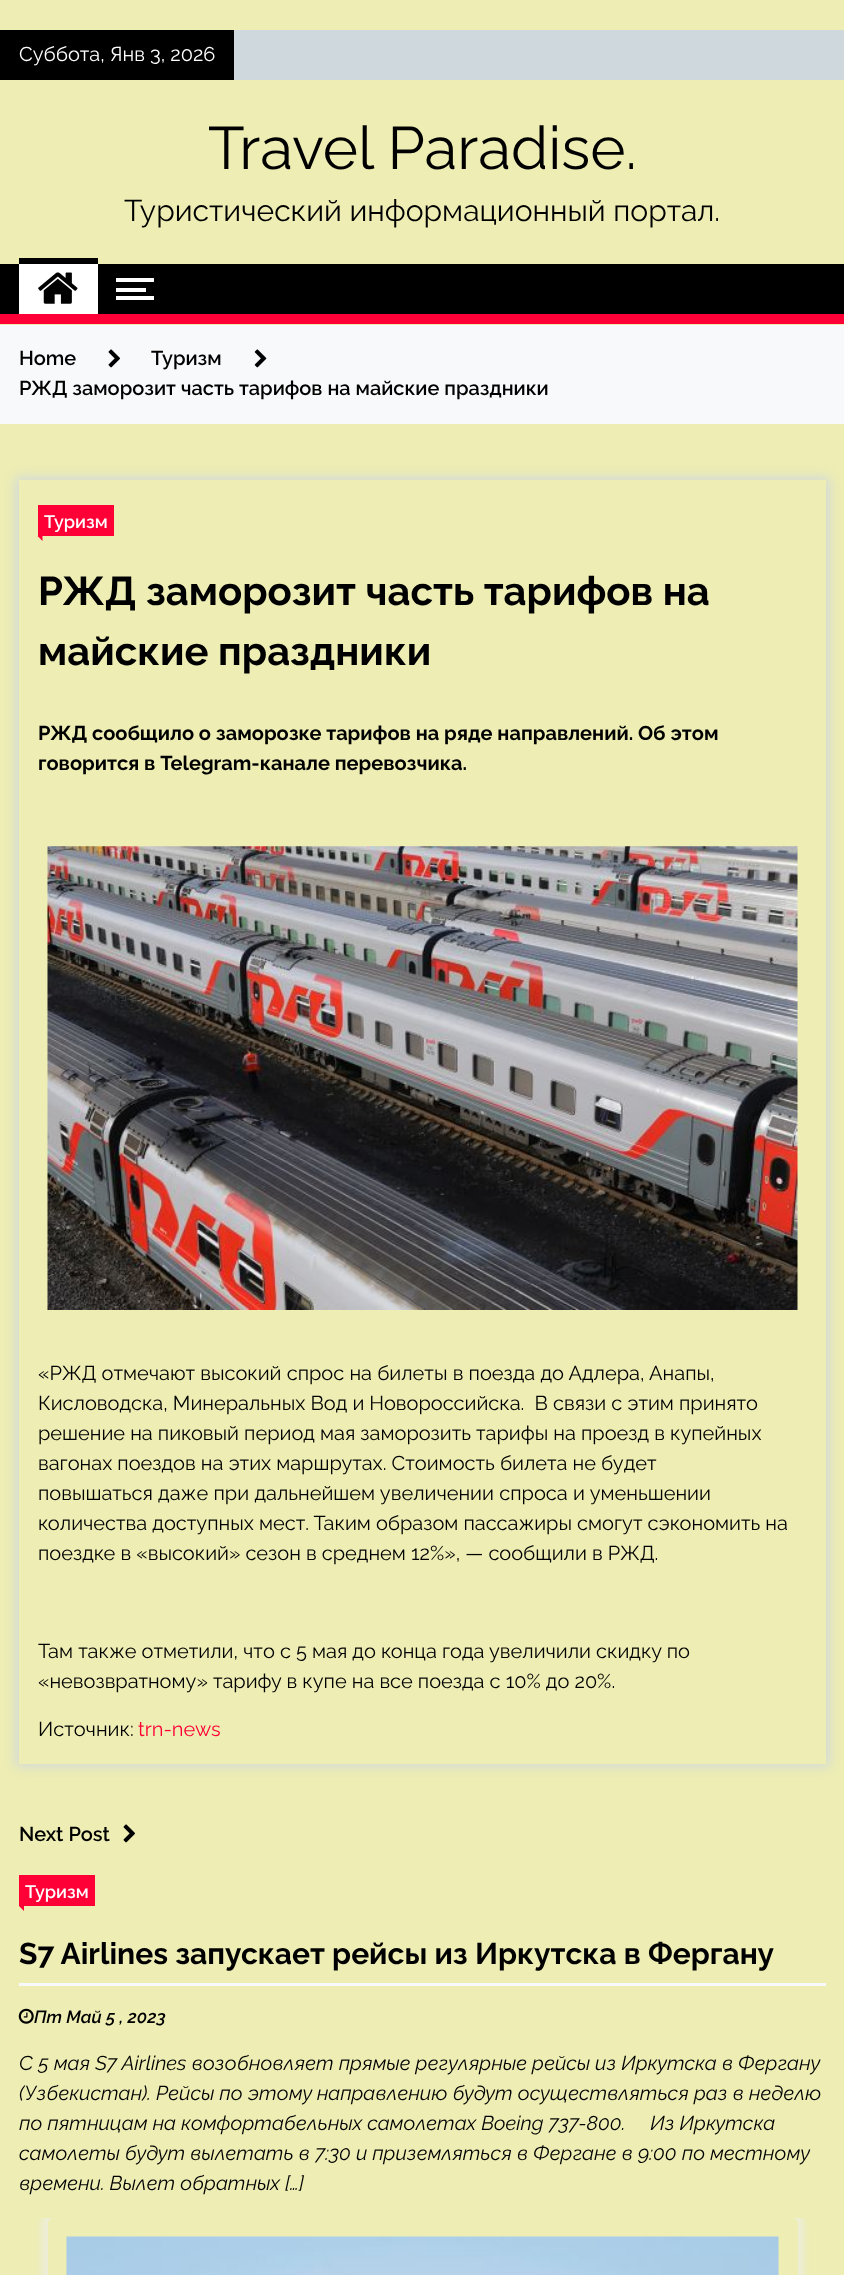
async function draw(canvas) {
  canvas.width = 844
  canvas.height = 2275
  const ctx = canvas.getContext('2d')
  ctx.miterLimit = 4
  ctx.fontKerning = 'normal'
  async function loadImage(src) {
    const img = new Image()
    img.src = src
    await img.decode()
    return img
  }

  ctx.fillStyle = '#ededb4'
  ctx.fillRect(0, 0, 844, 2275)
  ctx.fillStyle = '#cfd8dc'
  ctx.fillRect(234, 30, 610, 50)
  ctx.fillStyle = '#000'
  ctx.fillRect(0, 30, 234, 50)
  ctx.font = '20px Raleway'
  ctx.fillStyle = '#fff'
  ctx.fillText('Суббота, Янв 3, 2026', 19, 61)
  ctx.wordSpacing = '-2px'
  ctx.font = '60px Raleway'
  ctx.fillStyle = '#000'
  ctx.fillText('Travel Paradise.', 208, 169)
  ctx.wordSpacing = '0px'
  ctx.font = '30px Raleway'
  ctx.fillText('Туристический информационный портал.', 124, 221)
  ctx.fillRect(0, 264, 844, 50)
  ctx.fillStyle = '#fff'
  ctx.fillRect(19, 264, 79, 50)
  ctx.fillStyle = '#000'
  ctx.fillRect(19, 258, 79, 6)
  ctx.drawImage(await loadImage('image0.png'), 38, 272, 40, 32)
  ctx.fillStyle = '#fff'
  ctx.fillRect(116, 278, 38, 4)
  ctx.fillRect(116, 296, 38, 4)
  ctx.fillRect(116, 288, 30, 4)
  ctx.fillStyle = '#ff0036'
  ctx.fillRect(0, 314, 844, 10)
  ctx.fillStyle = '#f8f9fa'
  ctx.fillRect(0, 325, 844, 99)
  ctx.font = '600 20px Raleway'
  ctx.fillStyle = '#000'
  ctx.fillText('Home', 19, 365)
  ctx.drawImage(await loadImage('image1.png'), 108, 349, 12, 19)
  ctx.fillText('Туризм', 151, 365)
  ctx.drawImage(await loadImage('image2.png'), 254, 349, 13, 19)
  ctx.fillText('РЖД заморозит часть тарифов на майские праздники', 19, 395)
  ctx.save()
  ctx.beginPath()
  ctx.moveTo(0, 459)
  ctx.lineTo(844, 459)
  ctx.lineTo(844, 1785)
  ctx.lineTo(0, 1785)
  ctx.closePath()
  ctx.moveTo(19, 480)
  ctx.lineTo(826, 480)
  ctx.lineTo(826, 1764)
  ctx.lineTo(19, 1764)
  ctx.closePath()
  ctx.clip('evenodd')
  ctx.fillStyle = '#cfd8dc'
  ctx.filter = 'blur(6px)'
  ctx.beginPath()
  ctx.rect(16, 478, 813, 1288)
  ctx.fill()
  ctx.filter = 'none'
  ctx.restore()
  ctx.fillStyle = '#ff0036'
  ctx.fillRect(38, 505, 76, 31)
  ctx.font = '600 18px Raleway'
  ctx.fillStyle = '#fff'
  ctx.fillText('Туризм', 44, 528)
  ctx.fillStyle = '#ff0036'
  ctx.beginPath()
  ctx.moveTo(42.5, 536)
  ctx.lineTo(42.5, 541)
  ctx.lineTo(37.5, 536)
  ctx.closePath()
  ctx.fill()
  ctx.font = 'bold 40px Raleway'
  ctx.fillStyle = '#000'
  ctx.fillText('РЖД заморозит часть тарифов на', 38, 605)
  ctx.fillText('майские праздники', 38, 665)
  ctx.font = 'bold 20px Raleway'
  ctx.fillText('РЖД сообщило о заморозке тарифов на ряде направлений. Об этом', 38, 740)
  ctx.fillText('говорится в Telegram-канале перевозчика.', 38, 770)
  ctx.drawImage(await loadImage('image3.png'), 47, 846, 751, 464)
  ctx.wordSpacing = '0.1px'
  ctx.font = '20px Raleway'
  ctx.fillText('«РЖД отмечают высокий спрос на билеты в поезда до Адлера, Анапы,', 38, 1380)
  ctx.wordSpacing = '0px'
  ctx.fillText('Кисловодска, Минеральных Вод и Новороссийска.  В связи с этим принято', 38, 1410)
  ctx.fillText('решение на пиковый период мая заморозить тарифы на проезд в купейных', 38, 1440)
  ctx.fillText('вагонах поездов на этих маршрутах. Стоимость билета не будет', 38, 1470)
  ctx.wordSpacing = '0.25px'
  ctx.fillText('повышаться даже при дальнейшем увеличении спроса и уменьшении', 38, 1500)
  ctx.wordSpacing = '0px'
  ctx.fillText('количества доступных мест. Таким образом пассажиры смогут сэкономить на', 38, 1530)
  ctx.fillText('поездке в «высокий» сезон в среднем 12%», — сообщили в РЖД.', 38, 1560)
  ctx.fillText('Там также отметили, что с 5 мая до конца года увеличили скидку по', 38, 1658)
  ctx.fillText('«невозвратному» тарифу в купе на все поезда с 10% до 20%.', 38, 1688)
  ctx.fillText('Источник:', 38, 1736)
  ctx.fillStyle = '#ff0036'
  ctx.fillText('trn-news', 138, 1736)
  ctx.font = '600 20px Raleway'
  ctx.fillStyle = '#000'
  ctx.fillText('Next Post', 19, 1841)
  ctx.drawImage(await loadImage('image4.png'), 123, 1824, 12, 19)
  ctx.fillStyle = '#ff0036'
  ctx.fillRect(19, 1875, 76, 31)
  ctx.font = '600 18px Raleway'
  ctx.fillStyle = '#fff'
  ctx.fillText('Туризм', 25, 1898)
  ctx.fillStyle = '#ff0036'
  ctx.beginPath()
  ctx.moveTo(24, 1906)
  ctx.lineTo(24, 1911)
  ctx.lineTo(19, 1906)
  ctx.closePath()
  ctx.fill()
  ctx.fillStyle = '#f8f9fa'
  ctx.fillRect(19, 1983, 807, 3)
  ctx.font = 'bold 30px Raleway'
  ctx.fillStyle = '#000'
  ctx.fillText('S7 Airlines запускает рейсы из Иркутска в Фергану', 19, 1964)
  ctx.drawImage(await loadImage('image5.png'), 18, 2008, 16, 16)
  ctx.font = 'italic 600 17.5px Raleway'
  ctx.fillText('Пт Май 5 , 2023', 34, 2023)
  ctx.font = 'italic 20px Raleway'
  ctx.fillText('С 5 мая S7 Airlines возобновляет прямые регулярные рейсы из Иркутска в Фергану', 19, 2070)
  ctx.fillText('(Узбекистан). Рейсы по этому направлению будут осуществляться раз в неделю', 19, 2100)
  ctx.fillText('по пятницам на комфортабельных самолетах Boeing 737-800.     Из Иркутска', 19, 2130)
  ctx.fillText('самолеты будут вылетать в 7:30 и приземляться в Фергане в 9:00 по местному', 19, 2160)
  ctx.fillText('времени. Вылет обратных […]', 19, 2190)
  ctx.save()
  ctx.beginPath()
  ctx.rect(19, 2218, 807, 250)
  ctx.clip()
  ctx.beginPath()
  ctx.moveTo(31, 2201)
  ctx.lineTo(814, 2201)
  ctx.lineTo(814, 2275)
  ctx.lineTo(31, 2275)
  ctx.closePath()
  ctx.moveTo(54, 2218)
  ctx.lineTo(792, 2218)
  ctx.bezierCurveTo(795.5, 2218, 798, 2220.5, 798, 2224)
  ctx.lineTo(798, 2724)
  ctx.bezierCurveTo(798, 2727.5, 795.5, 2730, 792, 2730)
  ctx.lineTo(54, 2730)
  ctx.bezierCurveTo(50.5, 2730, 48, 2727.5, 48, 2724)
  ctx.lineTo(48, 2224)
  ctx.bezierCurveTo(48, 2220.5, 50.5, 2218, 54, 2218)
  ctx.closePath()
  ctx.clip('evenodd')
  ctx.fillStyle = '#eeeeee99'
  ctx.filter = 'blur(3px)'
  ctx.beginPath()
  ctx.roundRect(41, 2211, 763, 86, 13)
  ctx.fill()
  ctx.filter = 'none'
  ctx.restore()
  ctx.drawImage(await loadImage('image6.png'), 66, 2236, 713, 39)
}

draw(document.querySelector('canvas'))
